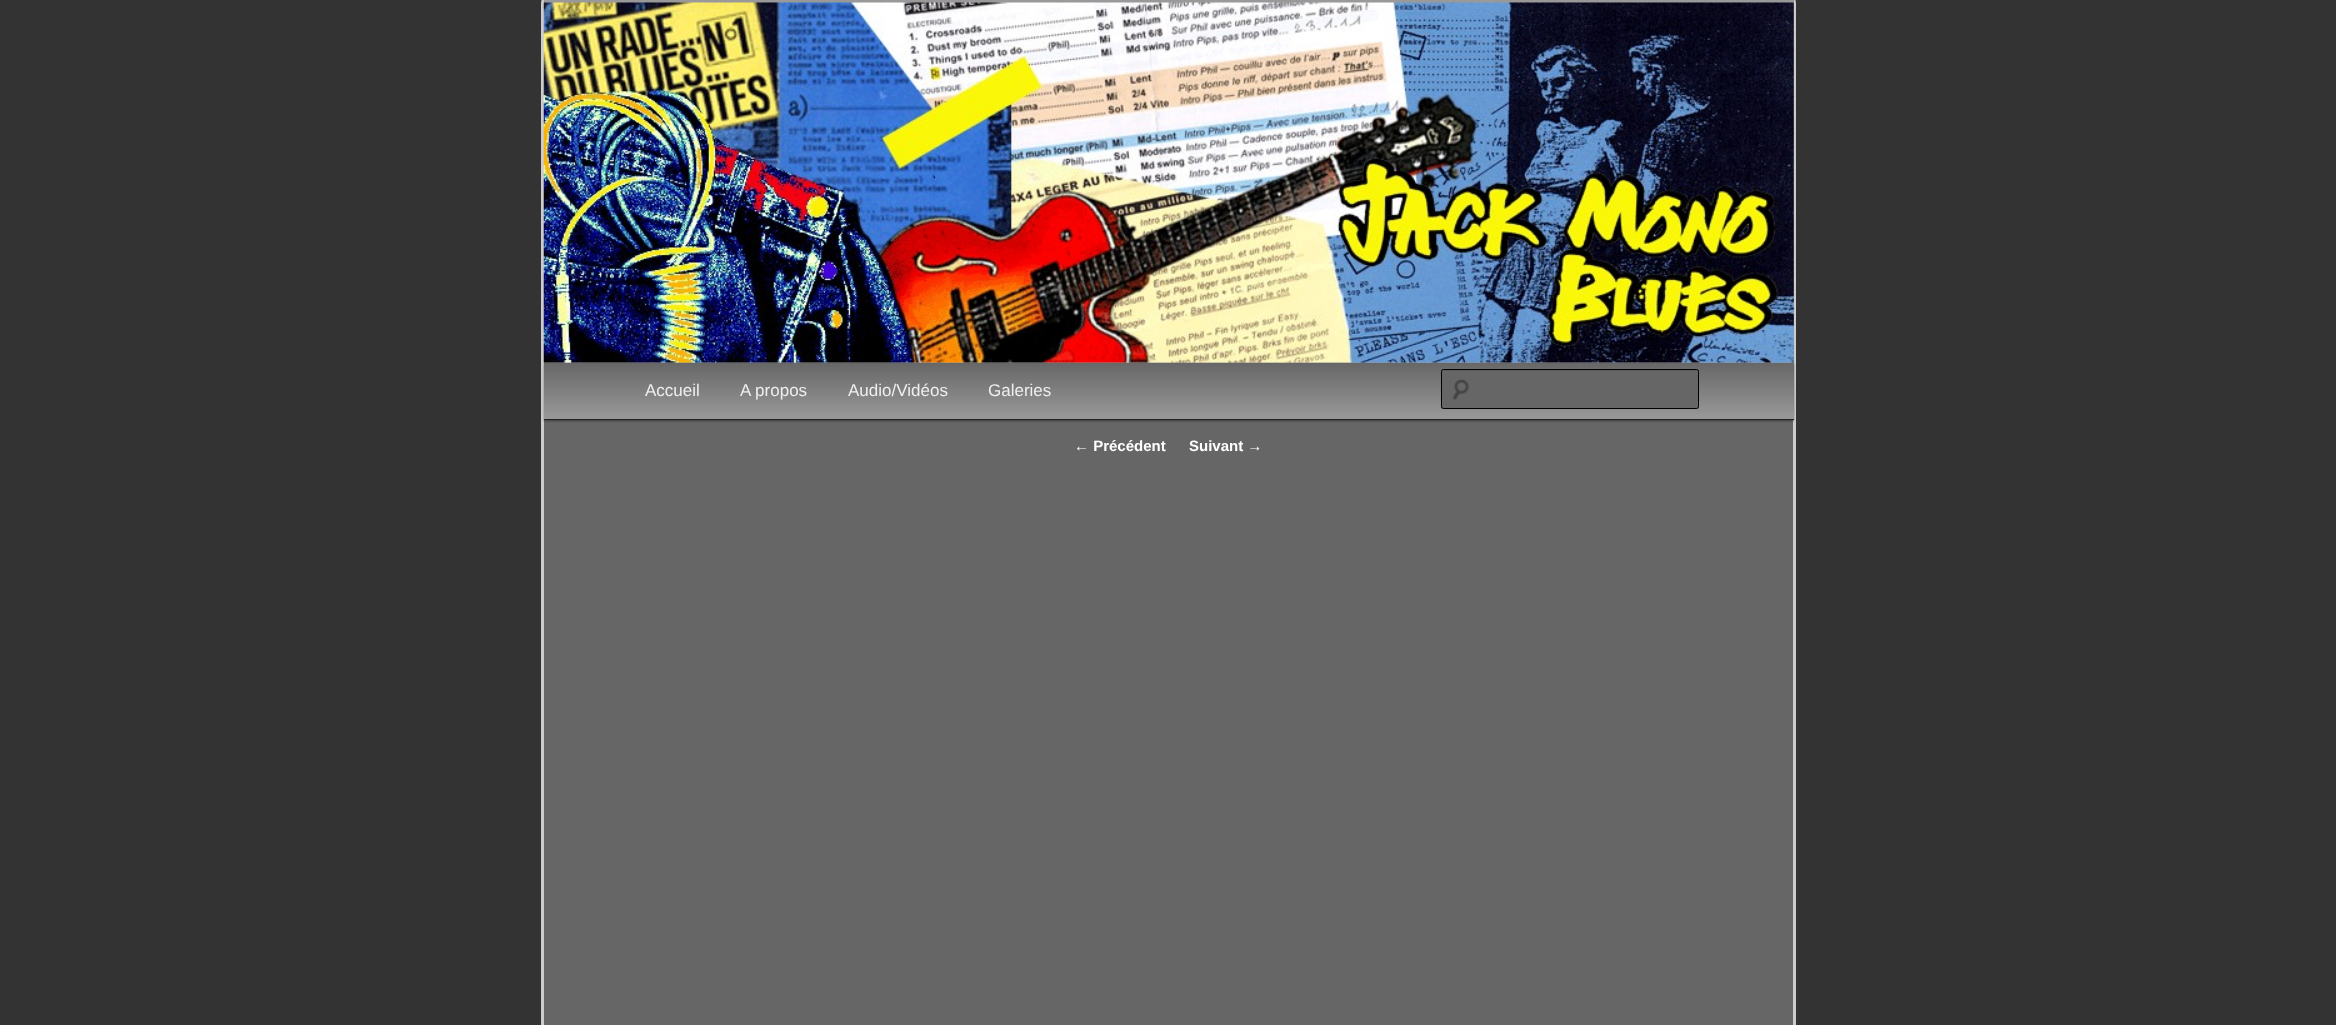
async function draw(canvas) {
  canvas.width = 2336
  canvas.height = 1025
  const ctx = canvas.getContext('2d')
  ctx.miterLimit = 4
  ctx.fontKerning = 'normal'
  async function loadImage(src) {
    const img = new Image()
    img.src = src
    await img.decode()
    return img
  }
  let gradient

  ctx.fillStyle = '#333'
  ctx.fillRect(0, 0, 2336, 1025)
  ctx.fillStyle = '#666'
  ctx.beginPath()
  ctx.roundRect(542.5, -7.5, 1252, 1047, 11.5)
  ctx.fill()
  ctx.strokeStyle = '#ccc'
  ctx.lineWidth = 3
  ctx.stroke()
  ctx.fillStyle = '#999'
  ctx.fillRect(544, 0, 1250, 363)
  ctx.fillStyle = '#00000066'
  ctx.filter = 'blur(1px)'
  ctx.beginPath()
  ctx.rect(544, 364, 1250, 57)
  ctx.fill()
  ctx.filter = 'none'
  ctx.drawImage(await loadImage('image0.png'), 543, 2, 1251, 361)
  gradient = ctx.createLinearGradient(1169, 362, 1169, 419)
  gradient.addColorStop(0, '#666')
  gradient.addColorStop(1, '#999')
  ctx.fillStyle = gradient
  ctx.fillRect(544, 363, 1250, 56)
  ctx.fillStyle = '#222'
  ctx.fillRect(544, 419, 1250, 1)
  ctx.font = '17px Liberation Sans'
  ctx.fillStyle = '#eee'
  ctx.fillText('Accueil', 645, 396)
  ctx.fillText('A propos', 740, 396)
  ctx.fillText('Audio/Vidéos', 848, 396)
  ctx.fillText('Galeries', 988, 396)
  ctx.fillStyle = '#666'
  ctx.beginPath()
  ctx.roundRect(1441, 369, 258, 40, 2.5)
  ctx.fill()
  ctx.drawImage(await loadImage('image1.png'), 1452, 379, 17, 21)
  ctx.fillStyle = '#5c5c5c'
  ctx.beginPath()
  ctx.moveTo(1444, 371)
  ctx.lineTo(1696, 371)
  ctx.lineTo(1698, 372)
  ctx.bezierCurveTo(1698, 371, 1698, 370, 1697, 370)
  ctx.lineTo(1444, 370)
  ctx.bezierCurveTo(1443, 370, 1443, 371, 1443, 371)
  ctx.closePath()
  ctx.fill()
  ctx.beginPath()
  ctx.roundRect(1441.5, 369.5, 257, 39, 2)
  ctx.strokeStyle = '#000'
  ctx.lineWidth = 1
  ctx.stroke()
  ctx.font = 'bold 15px Liberation Sans'
  ctx.fillStyle = '#fff'
  ctx.fillText('← Précédent', 1074, 451)
  ctx.fillText('Suivant →', 1189, 451)
}

draw(document.querySelector('canvas'))
